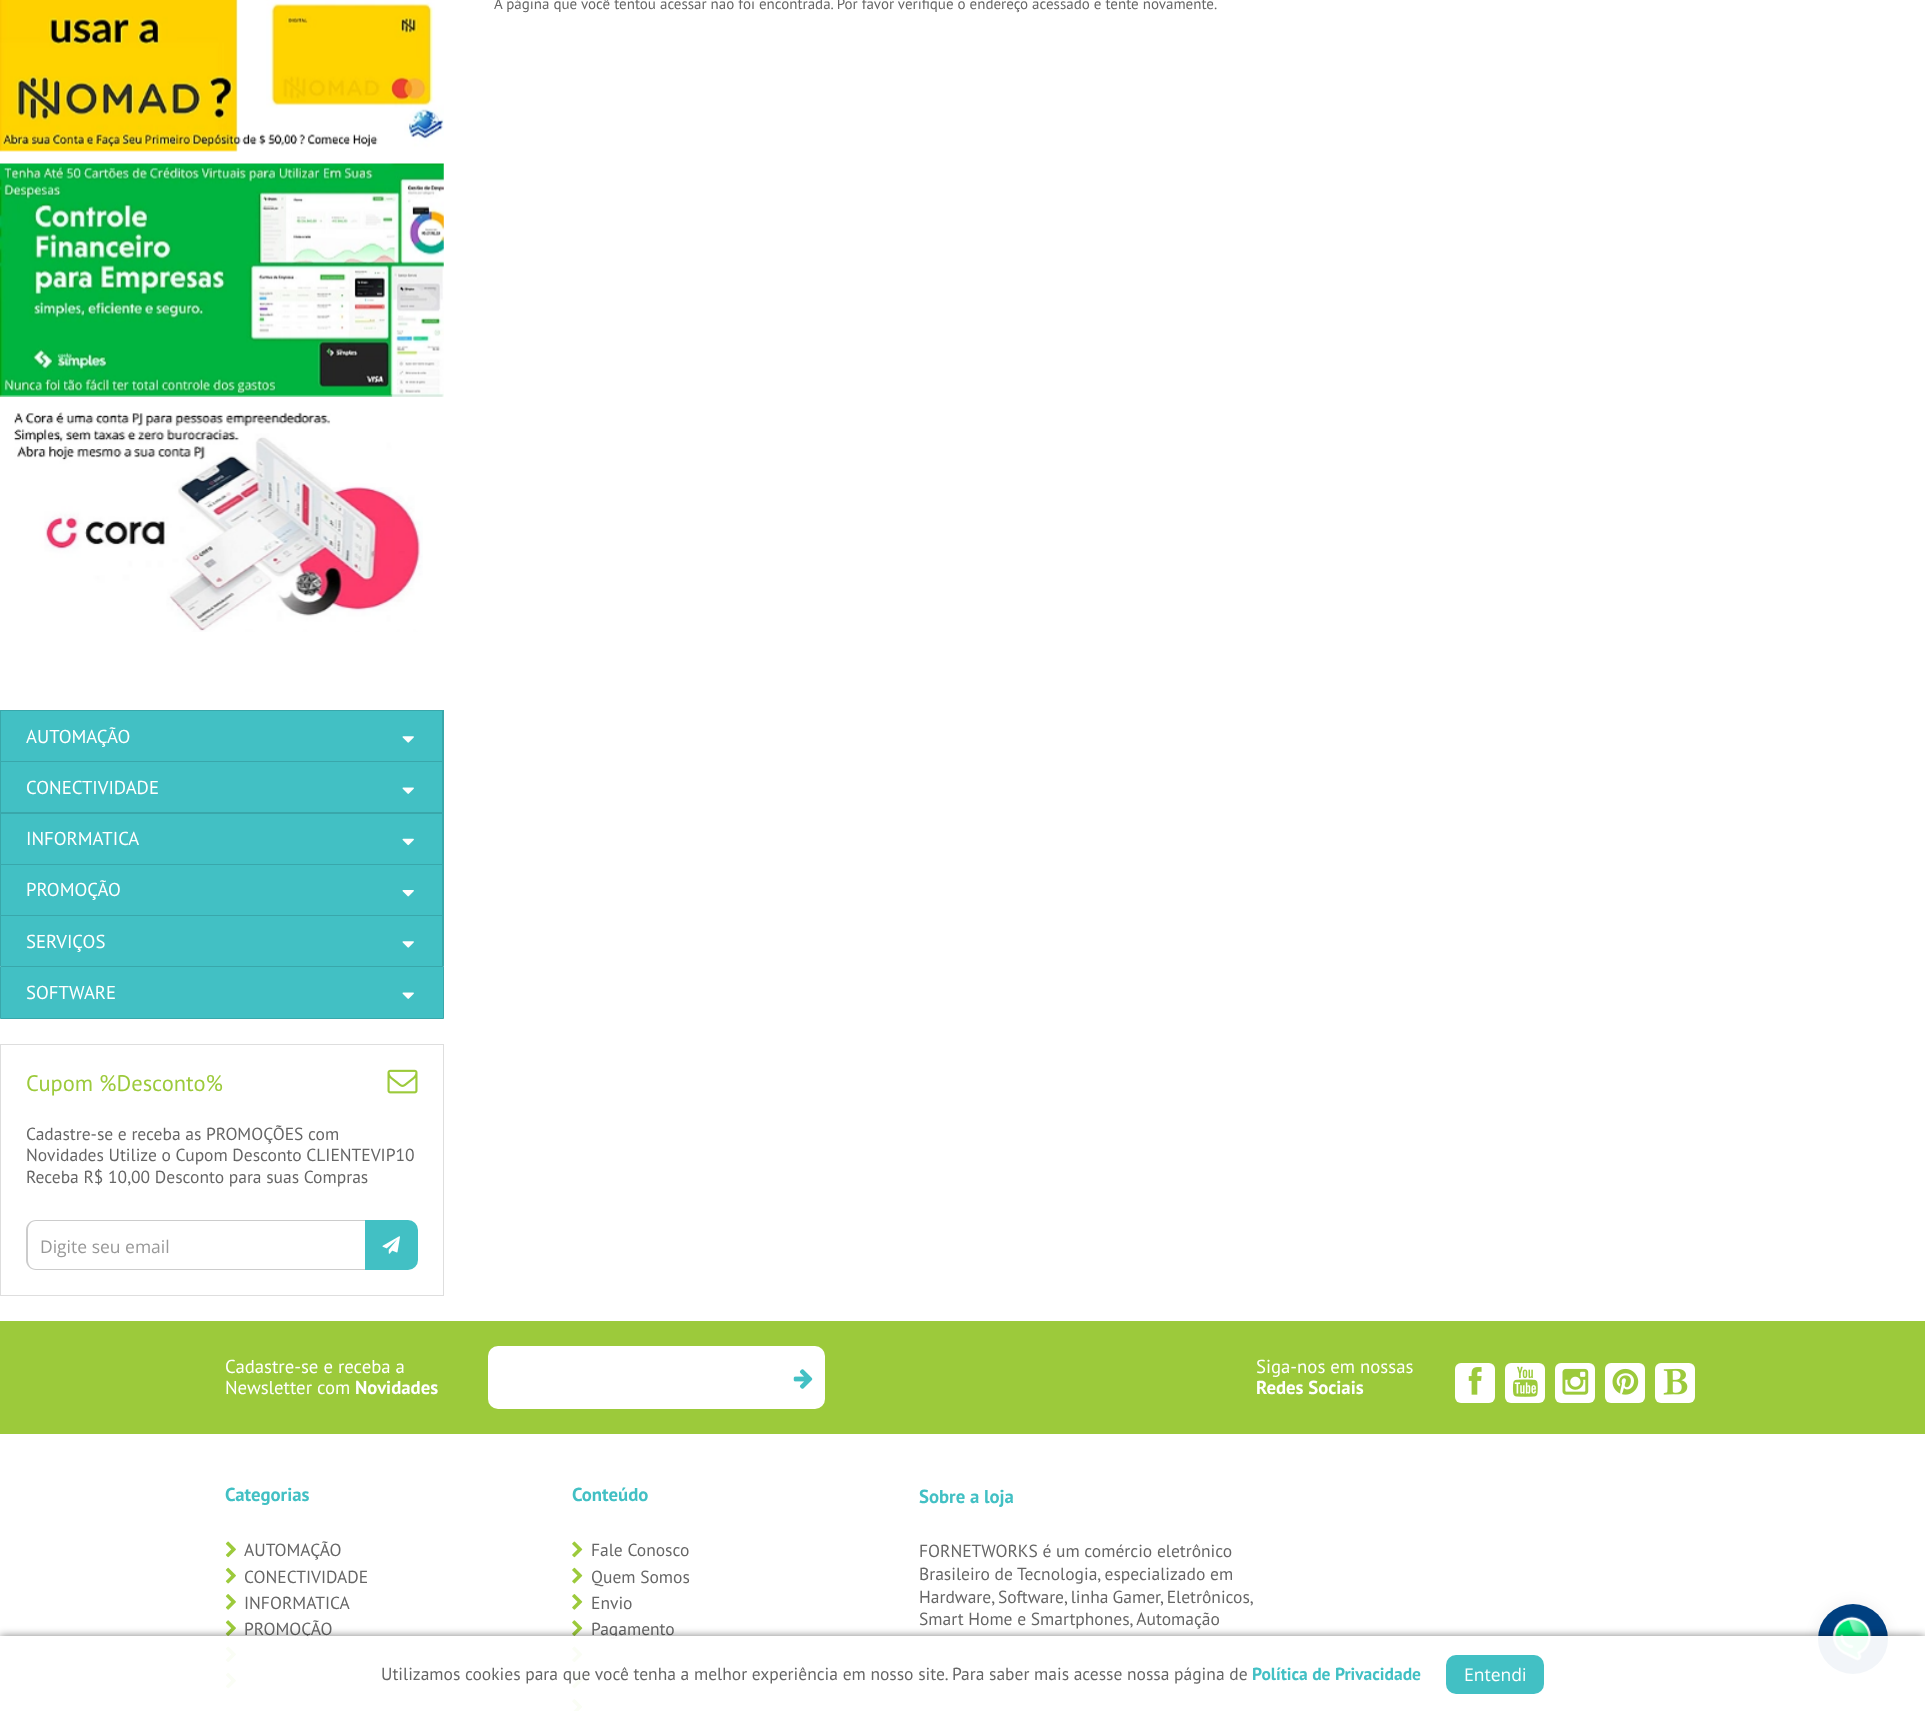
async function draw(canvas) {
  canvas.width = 1925
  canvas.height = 1711
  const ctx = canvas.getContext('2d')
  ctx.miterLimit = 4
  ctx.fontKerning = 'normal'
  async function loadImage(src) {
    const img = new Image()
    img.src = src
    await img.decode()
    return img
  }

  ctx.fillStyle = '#fff'
  ctx.fillRect(0, 0, 1925, 1711)
  ctx.font = '15px PT Sans'
  ctx.fillStyle = '#666'
  ctx.fillText('A página que você tentou acessar não foi encontrada. Por favor verifique o endereço acessado e tente novamente.', 494, 9)
  ctx.drawImage(await loadImage('image0.png'), 0, 0, 444, 152)
  ctx.drawImage(await loadImage('image1.png'), 0, 163, 444, 234)
  ctx.drawImage(await loadImage('image2.png'), 14, 412, 409, 220)
  ctx.fillStyle = '#42c0c4'
  ctx.fillRect(0, 710, 444, 256)
  ctx.fillStyle = '#39a7ab'
  ctx.beginPath()
  ctx.moveTo(0, 710)
  ctx.lineTo(444, 710)
  ctx.lineTo(442, 711)
  ctx.lineTo(1, 711)
  ctx.closePath()
  ctx.fill()
  ctx.fillStyle = '#00000021'
  ctx.beginPath()
  ctx.moveTo(444, 710)
  ctx.lineTo(444, 761)
  ctx.lineTo(442, 761)
  ctx.lineTo(442, 711)
  ctx.closePath()
  ctx.fill()
  ctx.beginPath()
  ctx.moveTo(0, 761)
  ctx.lineTo(0, 710)
  ctx.lineTo(1, 711)
  ctx.lineTo(1, 761)
  ctx.closePath()
  ctx.fill()
  ctx.font = '18.75px PT Sans'
  ctx.fillStyle = '#fff'
  ctx.fillText('AUTOMAÇÃO', 26, 743)
  ctx.drawImage(await loadImage('image3.png'), 402, 736, 12, 7)
  ctx.fillStyle = '#39a7ab'
  ctx.beginPath()
  ctx.moveTo(0, 761)
  ctx.lineTo(444, 761)
  ctx.lineTo(442, 762)
  ctx.lineTo(1, 762)
  ctx.closePath()
  ctx.fill()
  ctx.fillStyle = '#00000021'
  ctx.beginPath()
  ctx.moveTo(444, 761)
  ctx.lineTo(444, 812)
  ctx.lineTo(442, 812)
  ctx.lineTo(442, 762)
  ctx.closePath()
  ctx.fill()
  ctx.beginPath()
  ctx.moveTo(0, 812)
  ctx.lineTo(0, 761)
  ctx.lineTo(1, 762)
  ctx.lineTo(1, 812)
  ctx.closePath()
  ctx.fill()
  ctx.fillStyle = '#fff'
  ctx.fillText('CONECTIVIDADE', 26, 794)
  ctx.drawImage(await loadImage('image4.png'), 402, 787, 12, 7)
  ctx.fillStyle = '#39a7ab'
  ctx.beginPath()
  ctx.moveTo(0, 812)
  ctx.lineTo(444, 812)
  ctx.lineTo(442, 814)
  ctx.lineTo(1, 814)
  ctx.closePath()
  ctx.fill()
  ctx.fillStyle = '#00000021'
  ctx.beginPath()
  ctx.moveTo(444, 812)
  ctx.lineTo(444, 864)
  ctx.lineTo(442, 864)
  ctx.lineTo(442, 814)
  ctx.closePath()
  ctx.fill()
  ctx.beginPath()
  ctx.moveTo(0, 864)
  ctx.lineTo(0, 812)
  ctx.lineTo(1, 814)
  ctx.lineTo(1, 864)
  ctx.closePath()
  ctx.fill()
  ctx.fillStyle = '#fff'
  ctx.fillText('INFORMATICA', 26, 845)
  ctx.drawImage(await loadImage('image5.png'), 402, 838, 12, 8)
  ctx.fillStyle = '#39a7ab'
  ctx.beginPath()
  ctx.moveTo(0, 864)
  ctx.lineTo(444, 864)
  ctx.lineTo(442, 865)
  ctx.lineTo(1, 865)
  ctx.closePath()
  ctx.fill()
  ctx.fillStyle = '#00000021'
  ctx.beginPath()
  ctx.moveTo(444, 864)
  ctx.lineTo(444, 915)
  ctx.lineTo(442, 915)
  ctx.lineTo(442, 865)
  ctx.closePath()
  ctx.fill()
  ctx.beginPath()
  ctx.moveTo(0, 915)
  ctx.lineTo(0, 864)
  ctx.lineTo(1, 865)
  ctx.lineTo(1, 915)
  ctx.closePath()
  ctx.fill()
  ctx.fillStyle = '#fff'
  ctx.fillText('PROMOÇÃO', 26, 896)
  ctx.drawImage(await loadImage('image6.png'), 402, 890, 12, 7)
  ctx.fillStyle = '#39a7ab'
  ctx.beginPath()
  ctx.moveTo(0, 915)
  ctx.lineTo(444, 915)
  ctx.lineTo(442, 916)
  ctx.lineTo(1, 916)
  ctx.closePath()
  ctx.fill()
  ctx.fillStyle = '#00000021'
  ctx.beginPath()
  ctx.moveTo(444, 915)
  ctx.lineTo(444, 966)
  ctx.lineTo(442, 966)
  ctx.lineTo(442, 916)
  ctx.closePath()
  ctx.fill()
  ctx.beginPath()
  ctx.moveTo(0, 966)
  ctx.lineTo(0, 915)
  ctx.lineTo(1, 916)
  ctx.lineTo(1, 966)
  ctx.closePath()
  ctx.fill()
  ctx.fillStyle = '#fff'
  ctx.fillText('SERVIÇOS', 26, 948)
  ctx.drawImage(await loadImage('image3.png'), 402, 941, 12, 7)
  ctx.fillStyle = '#42c0c4'
  ctx.beginPath()
  ctx.rect(0.5, 966.5, 443, 52)
  ctx.fill()
  ctx.strokeStyle = '#39a7ab'
  ctx.stroke()
  ctx.fillStyle = '#fff'
  ctx.fillText('SOFTWARE', 26, 999)
  ctx.drawImage(await loadImage('image4.png'), 402, 992, 12, 7)
  ctx.strokeStyle = '#dedede'
  ctx.strokeRect(0.5, 1044.5, 443, 251)
  ctx.font = '22.5px PT Sans'
  ctx.fillStyle = '#9cca3b'
  ctx.fillText('Cupom %Desconto%', 26, 1091)
  ctx.drawImage(await loadImage('image7.png'), 387, 1069, 31, 25)
  ctx.font = '17.5px PT Sans'
  ctx.fillStyle = '#666'
  ctx.fillText('Cadastre-se e receba as PROMOÇÕES com', 26, 1140)
  ctx.fillText('Novidades Utilize o Cupom Desconto CLIENTEVIP10', 26, 1161)
  ctx.fillText('Receba R$ 10,00 Desconto para suas Compras', 26, 1183)
  ctx.fillStyle = '#ccc'
  ctx.beginPath()
  ctx.moveTo(36, 1220)
  ctx.lineTo(365, 1220)
  ctx.lineTo(365, 1270)
  ctx.lineTo(36, 1270)
  ctx.bezierCurveTo(31, 1270, 26, 1266, 26, 1260)
  ctx.lineTo(26, 1230)
  ctx.bezierCurveTo(26, 1224, 31, 1220, 36, 1220)
  ctx.closePath()
  ctx.moveTo(36, 1221)
  ctx.lineTo(365, 1221)
  ctx.lineTo(365, 1269)
  ctx.lineTo(36, 1269)
  ctx.bezierCurveTo(31, 1269, 28, 1265, 28, 1260)
  ctx.lineTo(28, 1230)
  ctx.bezierCurveTo(28, 1225, 31, 1221, 36, 1221)
  ctx.closePath()
  ctx.fill('evenodd')
  ctx.font = '17.5px Open Sans'
  ctx.fillStyle = '#999'
  ctx.fillText('Digite seu email', 40, 1253)
  ctx.fillStyle = '#42c0c4'
  ctx.beginPath()
  ctx.roundRect(365, 1220, 53, 50, [0, 10, 10, 0])
  ctx.fill()
  ctx.drawImage(await loadImage('image8.png'), 382, 1236, 18, 18)
  ctx.fillStyle = '#9cca3b'
  ctx.fillRect(0, 1321, 1925, 113)
  ctx.font = '18.75px PT Sans'
  ctx.fillStyle = '#fff'
  ctx.fillText('Cadastre-se e receba a', 225, 1373)
  ctx.fillText('Newsletter com', 225, 1394)
  ctx.font = 'bold 18.75px PT Sans'
  ctx.fillText('Novidades', 355, 1394)
  ctx.beginPath()
  ctx.roundRect(488, 1346, 337, 63, 10)
  ctx.fill()
  ctx.drawImage(await loadImage('image9.png'), 793, 1369, 20, 20)
  ctx.font = '18.75px PT Sans'
  ctx.fillText('Siga-nos em nossas', 1256, 1373)
  ctx.font = 'bold 18.75px PT Sans'
  ctx.fillText('Redes Sociais', 1256, 1394)
  ctx.beginPath()
  ctx.roundRect(1455, 1363, 40, 40, 6)
  ctx.fill()
  ctx.drawImage(await loadImage('image10.png'), 1468, 1367, 14, 28)
  ctx.beginPath()
  ctx.roundRect(1505, 1363, 40, 40, 6)
  ctx.fill()
  ctx.drawImage(await loadImage('image11.png'), 1512, 1366, 26, 31)
  ctx.beginPath()
  ctx.roundRect(1555, 1363, 40, 40, 6)
  ctx.fill()
  ctx.drawImage(await loadImage('image12.png'), 1562, 1368, 27, 27)
  ctx.beginPath()
  ctx.roundRect(1605, 1363, 40, 40, 6)
  ctx.fill()
  ctx.drawImage(await loadImage('image13.png'), 1612, 1368, 27, 27)
  ctx.beginPath()
  ctx.roundRect(1655, 1363, 40, 40, 6)
  ctx.fill()
  ctx.drawImage(await loadImage('image14.png'), 1663, 1368, 25, 27)
  ctx.fillStyle = '#42c0c4'
  ctx.fillText('Categorias', 225, 1501)
  ctx.drawImage(await loadImage('image15.png'), 225, 1541, 11, 17)
  ctx.font = '17.5px PT Sans'
  ctx.fillStyle = '#666'
  ctx.fillText('AUTOMAÇÃO', 244, 1556)
  ctx.drawImage(await loadImage('image16.png'), 225, 1567, 11, 17)
  ctx.fillText('CONECTIVIDADE', 244, 1583)
  ctx.drawImage(await loadImage('image17.png'), 225, 1594, 11, 16)
  ctx.fillText('INFORMATICA', 244, 1609)
  ctx.drawImage(await loadImage('image18.png'), 225, 1620, 11, 16)
  ctx.fillText('PROMOÇÃO', 244, 1635)
  ctx.drawImage(await loadImage('image15.png'), 225, 1646, 11, 17)
  ctx.drawImage(await loadImage('image16.png'), 225, 1672, 11, 17)
  ctx.font = 'bold 18.75px PT Sans'
  ctx.fillStyle = '#42c0c4'
  ctx.fillText('Conteúdo', 572, 1501)
  ctx.drawImage(await loadImage('image19.png'), 572, 1541, 11, 17)
  ctx.font = '17.5px PT Sans'
  ctx.fillStyle = '#666'
  ctx.fillText('Fale Conosco', 591, 1556)
  ctx.drawImage(await loadImage('image20.png'), 572, 1567, 11, 17)
  ctx.fillText('Quem Somos', 591, 1583)
  ctx.drawImage(await loadImage('image21.png'), 572, 1594, 11, 16)
  ctx.fillText('Envio', 591, 1609)
  ctx.drawImage(await loadImage('image22.png'), 572, 1620, 11, 16)
  ctx.fillText('Pagamento', 591, 1635)
  ctx.drawImage(await loadImage('image19.png'), 572, 1646, 11, 17)
  ctx.drawImage(await loadImage('image20.png'), 572, 1672, 11, 17)
  ctx.drawImage(await loadImage('image23.png'), 572, 1699, 11, 12)
  ctx.font = 'bold 18.75px PT Sans'
  ctx.fillStyle = '#42c0c4'
  ctx.fillText('Sobre a loja', 919, 1503)
  ctx.font = '17.5px PT Sans'
  ctx.fillStyle = '#666'
  ctx.fillText('FORNETWORKS é um comércio eletrônico', 919, 1557)
  ctx.fillText('Brasileiro de Tecnologia, especializado em', 919, 1580)
  ctx.wordSpacing = '-0.5px'
  ctx.fillText('Hardware, Software, linha Gamer, Eletrônicos,', 919, 1603)
  ctx.wordSpacing = '0px'
  ctx.fillText('Smart Home e Smartphones, Automação', 919, 1625)
  ctx.fillStyle = '#0000000a'
  ctx.filter = 'blur(6px)'
  ctx.beginPath()
  ctx.roundRect(1814, 1600, 77, 78, 38.5)
  ctx.fill()
  ctx.filter = 'none'
  ctx.fillStyle = '#004080'
  ctx.beginPath()
  ctx.arc(1853, 1639, 35, 0, 2 * Math.PI)
  ctx.fill()
  ctx.drawImage(await loadImage('image24.png'), 1832, 1616, 40, 46)
  ctx.save()
  ctx.beginPath()
  ctx.moveTo(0, 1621)
  ctx.lineTo(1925, 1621)
  ctx.lineTo(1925, 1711)
  ctx.lineTo(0, 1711)
  ctx.closePath()
  ctx.moveTo(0, 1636)
  ctx.lineTo(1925, 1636)
  ctx.lineTo(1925, 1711)
  ctx.lineTo(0, 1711)
  ctx.closePath()
  ctx.clip('evenodd')
  ctx.fillStyle = '#00000080'
  ctx.filter = 'blur(4.5px)'
  ctx.beginPath()
  ctx.rect(0, 1636, 1925, 75)
  ctx.fill()
  ctx.filter = 'none'
  ctx.restore()
  ctx.fillStyle = '#fffffff2'
  ctx.fillRect(0, 1636, 1925, 75)
  ctx.fillStyle = '#666'
  ctx.fillText('Utilizamos cookies para que você tenha a melhor experiência em nosso site. Para saber mais acesse nossa página de', 381, 1680)
  ctx.font = 'bold 17.5px PT Sans'
  ctx.fillStyle = '#42c0c4'
  ctx.fillText('Política de Privacidade', 1252, 1680)
  ctx.beginPath()
  ctx.roundRect(1446, 1655, 98, 39, 10)
  ctx.fill()
  ctx.font = '17.5px Open Sans'
  ctx.fillStyle = '#fff'
  ctx.fillText('Entendi', 1464, 1681)
}

draw(document.querySelector('canvas'))
